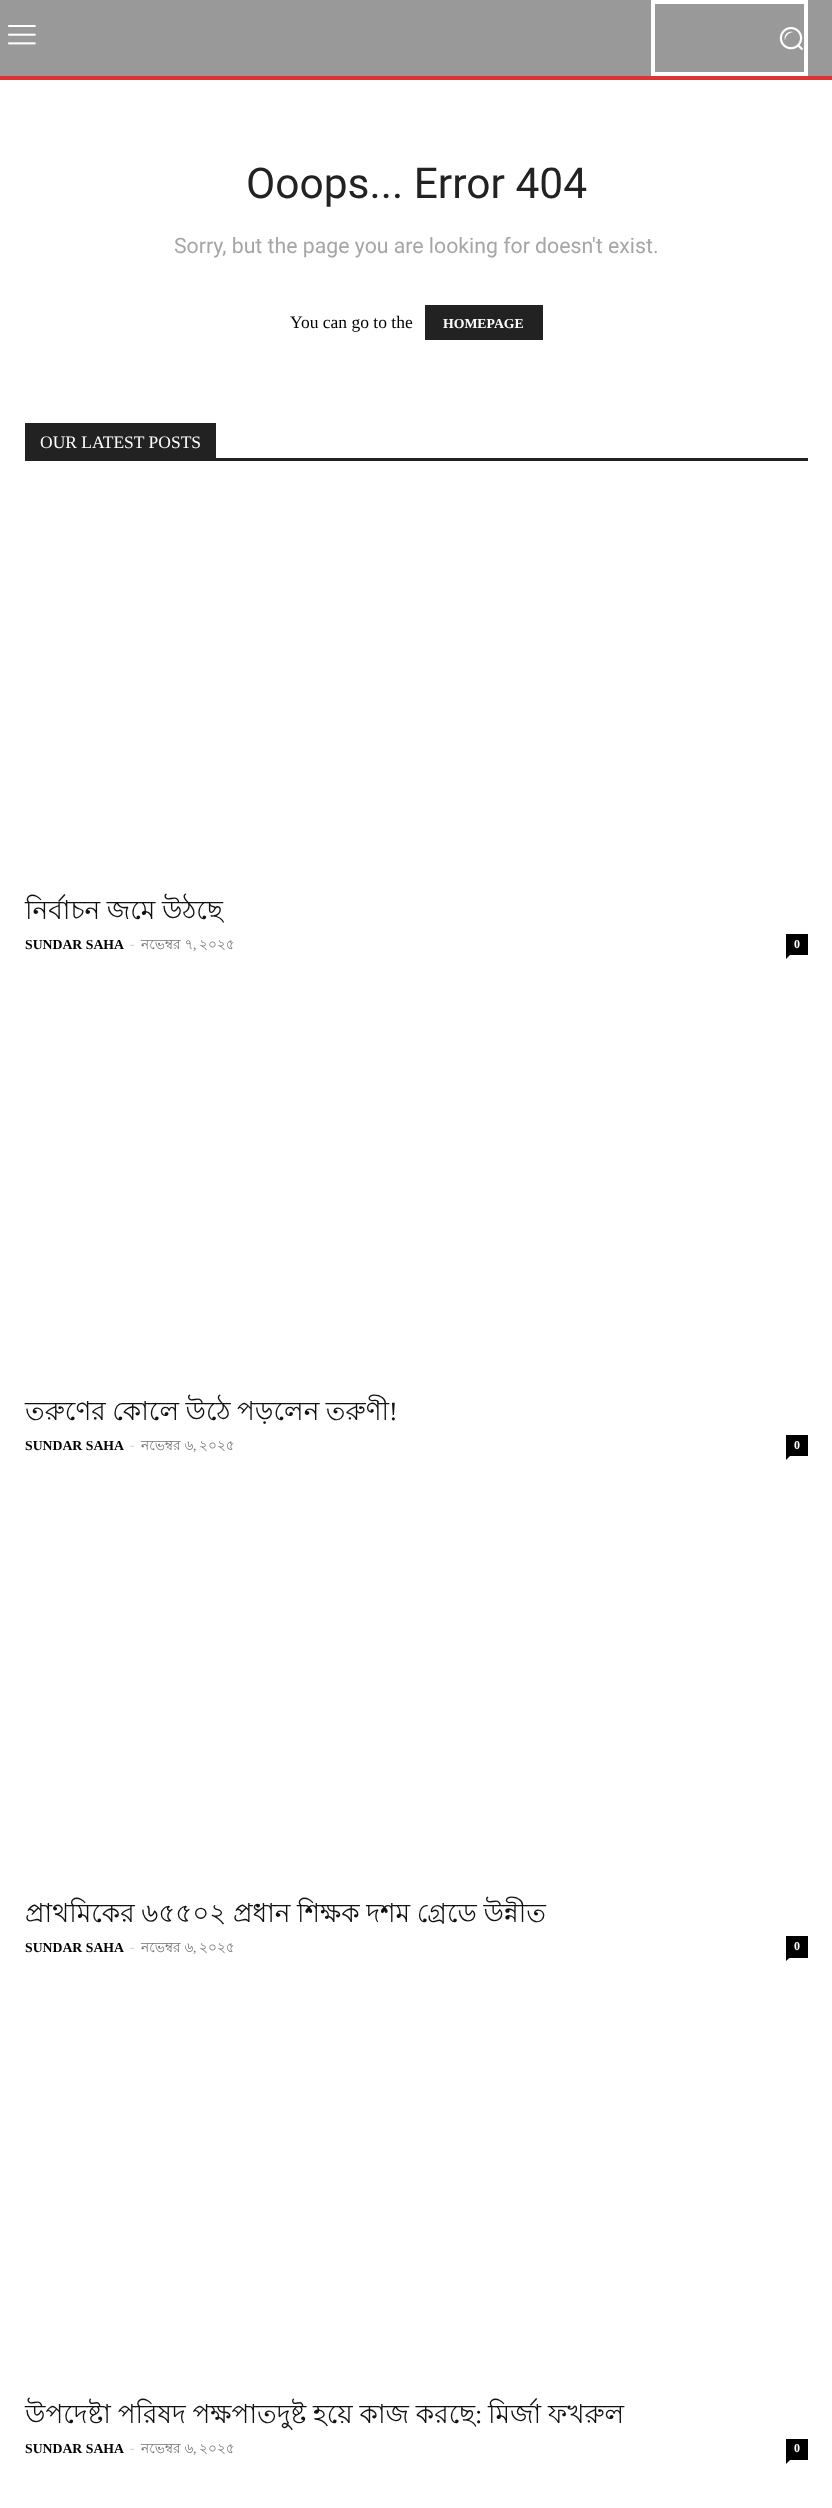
async function draw(canvas) {
  canvas.width = 832
  canvas.height = 2508
  const ctx = canvas.getContext('2d')
  ctx.miterLimit = 4
  ctx.fontKerning = 'normal'
  async function loadImage(src) {
    const img = new Image()
    img.src = src
    await img.decode()
    return img
  }

  ctx.fillStyle = '#fff'
  ctx.fillRect(0, 0, 832, 2508)
  ctx.fillStyle = '#999'
  ctx.fillRect(0, 0, 832, 76)
  ctx.drawImage(await loadImage('image0.png'), 8, 25, 28, 20)
  ctx.strokeStyle = '#fff'
  ctx.lineWidth = 4
  ctx.strokeRect(653, 2, 153, 72)
  ctx.drawImage(await loadImage('image1.png'), 779, 27, 25, 24)
  ctx.fillStyle = '#d33'
  ctx.fillRect(0, 76, 832, 4)
  ctx.font = '42.5px Roboto'
  ctx.fillStyle = '#222'
  ctx.fillText('Ooops... Error 404', 246, 198)
  ctx.font = '21.25px Roboto'
  ctx.fillStyle = '#a6a6a6'
  ctx.fillText('Sorry, but the page you are looking for doesn\'t exist.', 174, 253)
  ctx.font = '17.5px Liberation Serif'
  ctx.fillStyle = '#000'
  ctx.fillText('You can go to the', 290, 328)
  ctx.fillStyle = '#222'
  ctx.fillRect(425, 305, 118, 35)
  ctx.font = 'bold 13.75px Liberation Serif'
  ctx.fillStyle = '#fff'
  ctx.fillText('HOMEPAGE', 443, 328)
  ctx.fillStyle = '#222'
  ctx.fillRect(25, 458, 783, 3)
  ctx.fillRect(25, 423, 191, 35)
  ctx.font = '17.5px Liberation Serif'
  ctx.fillStyle = '#fff'
  ctx.fillText('OUR LATEST POSTS', 40, 448)
  ctx.wordSpacing = '-0.75px'
  ctx.font = '26.25px Lohit Bengali'
  ctx.fillStyle = '#111'
  ctx.fillText('নির্বাচন জমে উঠছে', 25, 919)
  ctx.wordSpacing = '0px'
  ctx.font = 'bold 13.75px Liberation Serif'
  ctx.fillStyle = '#000'
  ctx.fillText('SUNDAR SAHA', 25, 949)
  ctx.font = '13.75px Open Sans'
  ctx.fillStyle = '#ccc'
  ctx.fillText('-', 130, 949)
  ctx.font = '13.75px Lohit Bengali'
  ctx.fillStyle = '#767676'
  ctx.fillText('নভেম্বর ৭', 141, 949)
  ctx.font = '13.75px Liberation Serif'
  ctx.fillText(',', 193, 949)
  ctx.font = '13.75px Lohit Bengali'
  ctx.fillText('২০২৫', 199, 949)
  ctx.fillStyle = '#000'
  ctx.fillRect(786, 934, 22, 21)
  ctx.font = 'bold 12px Liberation Serif'
  ctx.fillStyle = '#fff'
  ctx.fillText('0', 794, 948)
  ctx.fillStyle = '#000'
  ctx.beginPath()
  ctx.moveTo(786, 955)
  ctx.lineTo(790, 955)
  ctx.lineTo(786, 959)
  ctx.closePath()
  ctx.fill()
  ctx.wordSpacing = '-0.75px'
  ctx.font = '26.25px Lohit Bengali'
  ctx.fillStyle = '#111'
  ctx.fillText('তরুণের কোলে উঠে পড়লেন তরুণী', 25, 1420)
  ctx.wordSpacing = '0px'
  ctx.font = '26.25px Liberation Serif'
  ctx.fillText('!', 389, 1420)
  ctx.font = 'bold 13.75px Liberation Serif'
  ctx.fillStyle = '#000'
  ctx.fillText('SUNDAR SAHA', 25, 1450)
  ctx.font = '13.75px Open Sans'
  ctx.fillStyle = '#ccc'
  ctx.fillText('-', 130, 1450)
  ctx.font = '13.75px Lohit Bengali'
  ctx.fillStyle = '#767676'
  ctx.fillText('নভেম্বর ৬', 141, 1450)
  ctx.font = '13.75px Liberation Serif'
  ctx.fillText(',', 193, 1450)
  ctx.font = '13.75px Lohit Bengali'
  ctx.fillText('২০২৫', 199, 1450)
  ctx.fillStyle = '#000'
  ctx.fillRect(786, 1435, 22, 21)
  ctx.font = 'bold 12px Liberation Serif'
  ctx.fillStyle = '#fff'
  ctx.fillText('0', 794, 1449)
  ctx.fillStyle = '#000'
  ctx.beginPath()
  ctx.moveTo(786, 1456)
  ctx.lineTo(790, 1456)
  ctx.lineTo(786, 1460)
  ctx.closePath()
  ctx.fill()
  ctx.wordSpacing = '-0.75px'
  ctx.font = '26.25px Lohit Bengali'
  ctx.fillStyle = '#111'
  ctx.fillText('প্রাথমিকের ৬৫৫০২ প্রধান শিক্ষক দশম গ্রেডে উন্নীত', 25, 1922)
  ctx.wordSpacing = '0px'
  ctx.font = 'bold 13.75px Liberation Serif'
  ctx.fillStyle = '#000'
  ctx.fillText('SUNDAR SAHA', 25, 1952)
  ctx.font = '13.75px Open Sans'
  ctx.fillStyle = '#ccc'
  ctx.fillText('-', 130, 1952)
  ctx.font = '13.75px Lohit Bengali'
  ctx.fillStyle = '#767676'
  ctx.fillText('নভেম্বর ৬', 141, 1952)
  ctx.font = '13.75px Liberation Serif'
  ctx.fillText(',', 193, 1952)
  ctx.font = '13.75px Lohit Bengali'
  ctx.fillText('২০২৫', 199, 1952)
  ctx.fillStyle = '#000'
  ctx.fillRect(786, 1936, 22, 22)
  ctx.font = 'bold 12px Liberation Serif'
  ctx.fillStyle = '#fff'
  ctx.fillText('0', 794, 1950)
  ctx.fillStyle = '#000'
  ctx.beginPath()
  ctx.moveTo(786, 1957.5)
  ctx.lineTo(790, 1957.5)
  ctx.lineTo(786, 1961)
  ctx.closePath()
  ctx.fill()
  ctx.wordSpacing = '-0.5px'
  ctx.font = '26.25px Lohit Bengali'
  ctx.fillStyle = '#111'
  ctx.fillText('উপদেষ্টা পরিষদ পক্ষপাতদুষ্ট হয়ে কাজ করছে', 25, 2423)
  ctx.wordSpacing = '0px'
  ctx.font = '26.25px Liberation Serif'
  ctx.fillText(':', 475, 2423)
  ctx.wordSpacing = '-0.5px'
  ctx.font = '26.25px Lohit Bengali'
  ctx.fillText('মির্জা ফখরুল', 488, 2423)
  ctx.wordSpacing = '0px'
  ctx.font = 'bold 13.75px Liberation Serif'
  ctx.fillStyle = '#000'
  ctx.fillText('SUNDAR SAHA', 25, 2453)
  ctx.font = '13.75px Open Sans'
  ctx.fillStyle = '#ccc'
  ctx.fillText('-', 130, 2453)
  ctx.font = '13.75px Lohit Bengali'
  ctx.fillStyle = '#767676'
  ctx.fillText('নভেম্বর ৬', 141, 2453)
  ctx.font = '13.75px Liberation Serif'
  ctx.fillText(',', 193, 2453)
  ctx.font = '13.75px Lohit Bengali'
  ctx.fillText('২০২৫', 199, 2453)
  ctx.fillStyle = '#000'
  ctx.fillRect(786, 2439, 22, 21)
  ctx.font = 'bold 12px Liberation Serif'
  ctx.fillStyle = '#fff'
  ctx.fillText('0', 794, 2452)
  ctx.fillStyle = '#000'
  ctx.beginPath()
  ctx.moveTo(786, 2460)
  ctx.lineTo(790, 2460)
  ctx.lineTo(786, 2464)
  ctx.closePath()
  ctx.fill()
}

draw(document.querySelector('canvas'))
